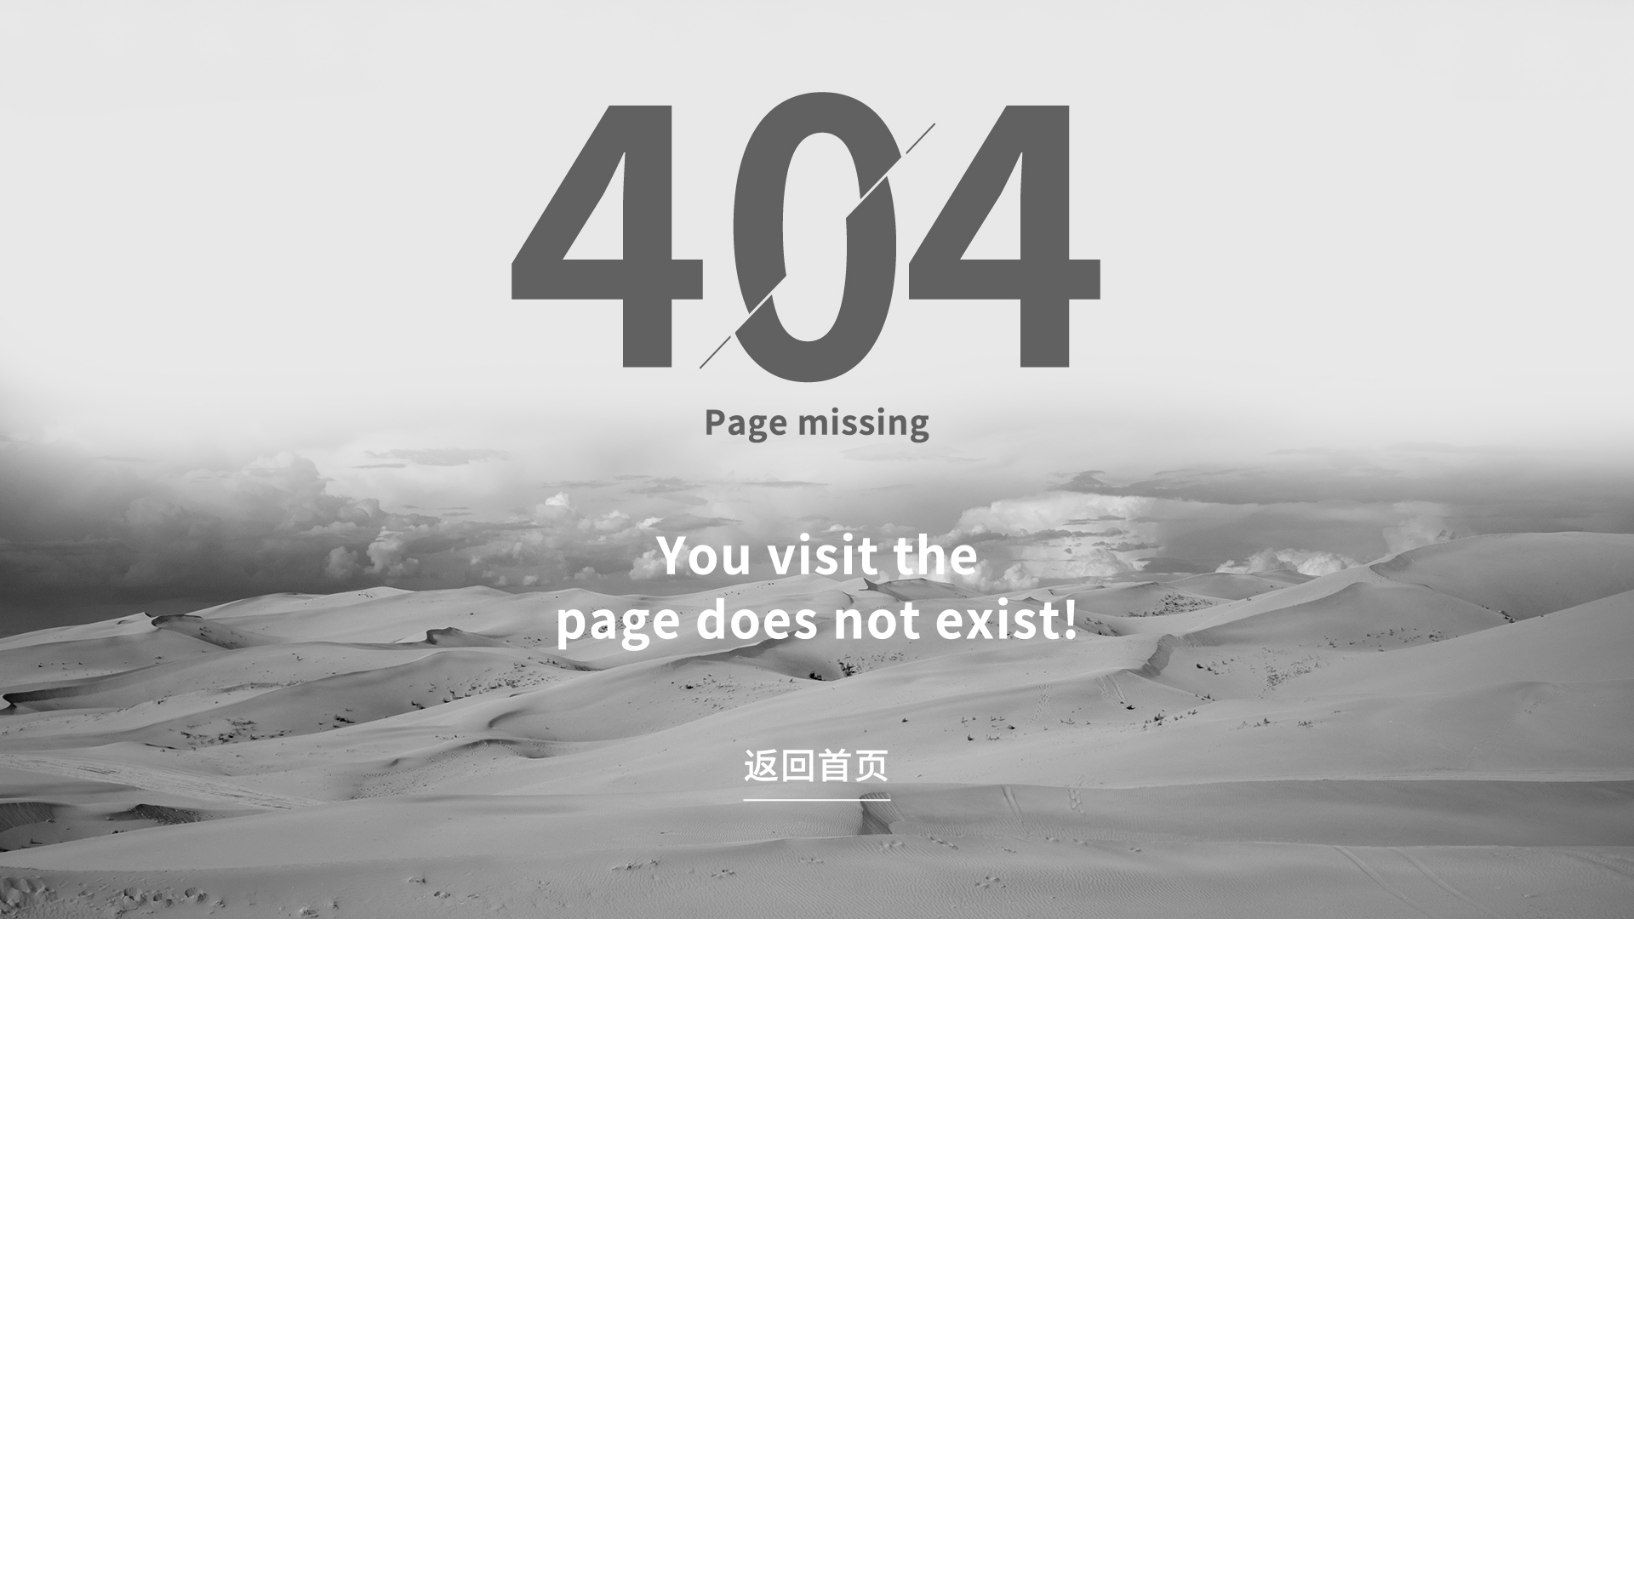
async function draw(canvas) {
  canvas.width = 1634
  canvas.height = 1594
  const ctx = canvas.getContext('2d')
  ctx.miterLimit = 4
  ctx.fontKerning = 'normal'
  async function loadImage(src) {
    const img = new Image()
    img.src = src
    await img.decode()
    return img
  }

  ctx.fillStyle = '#fff'
  ctx.fillRect(0, 0, 1634, 1594)
  ctx.drawImage(await loadImage('image0.png'), 0, 0, 1634, 919)
}

draw(document.querySelector('canvas'))
